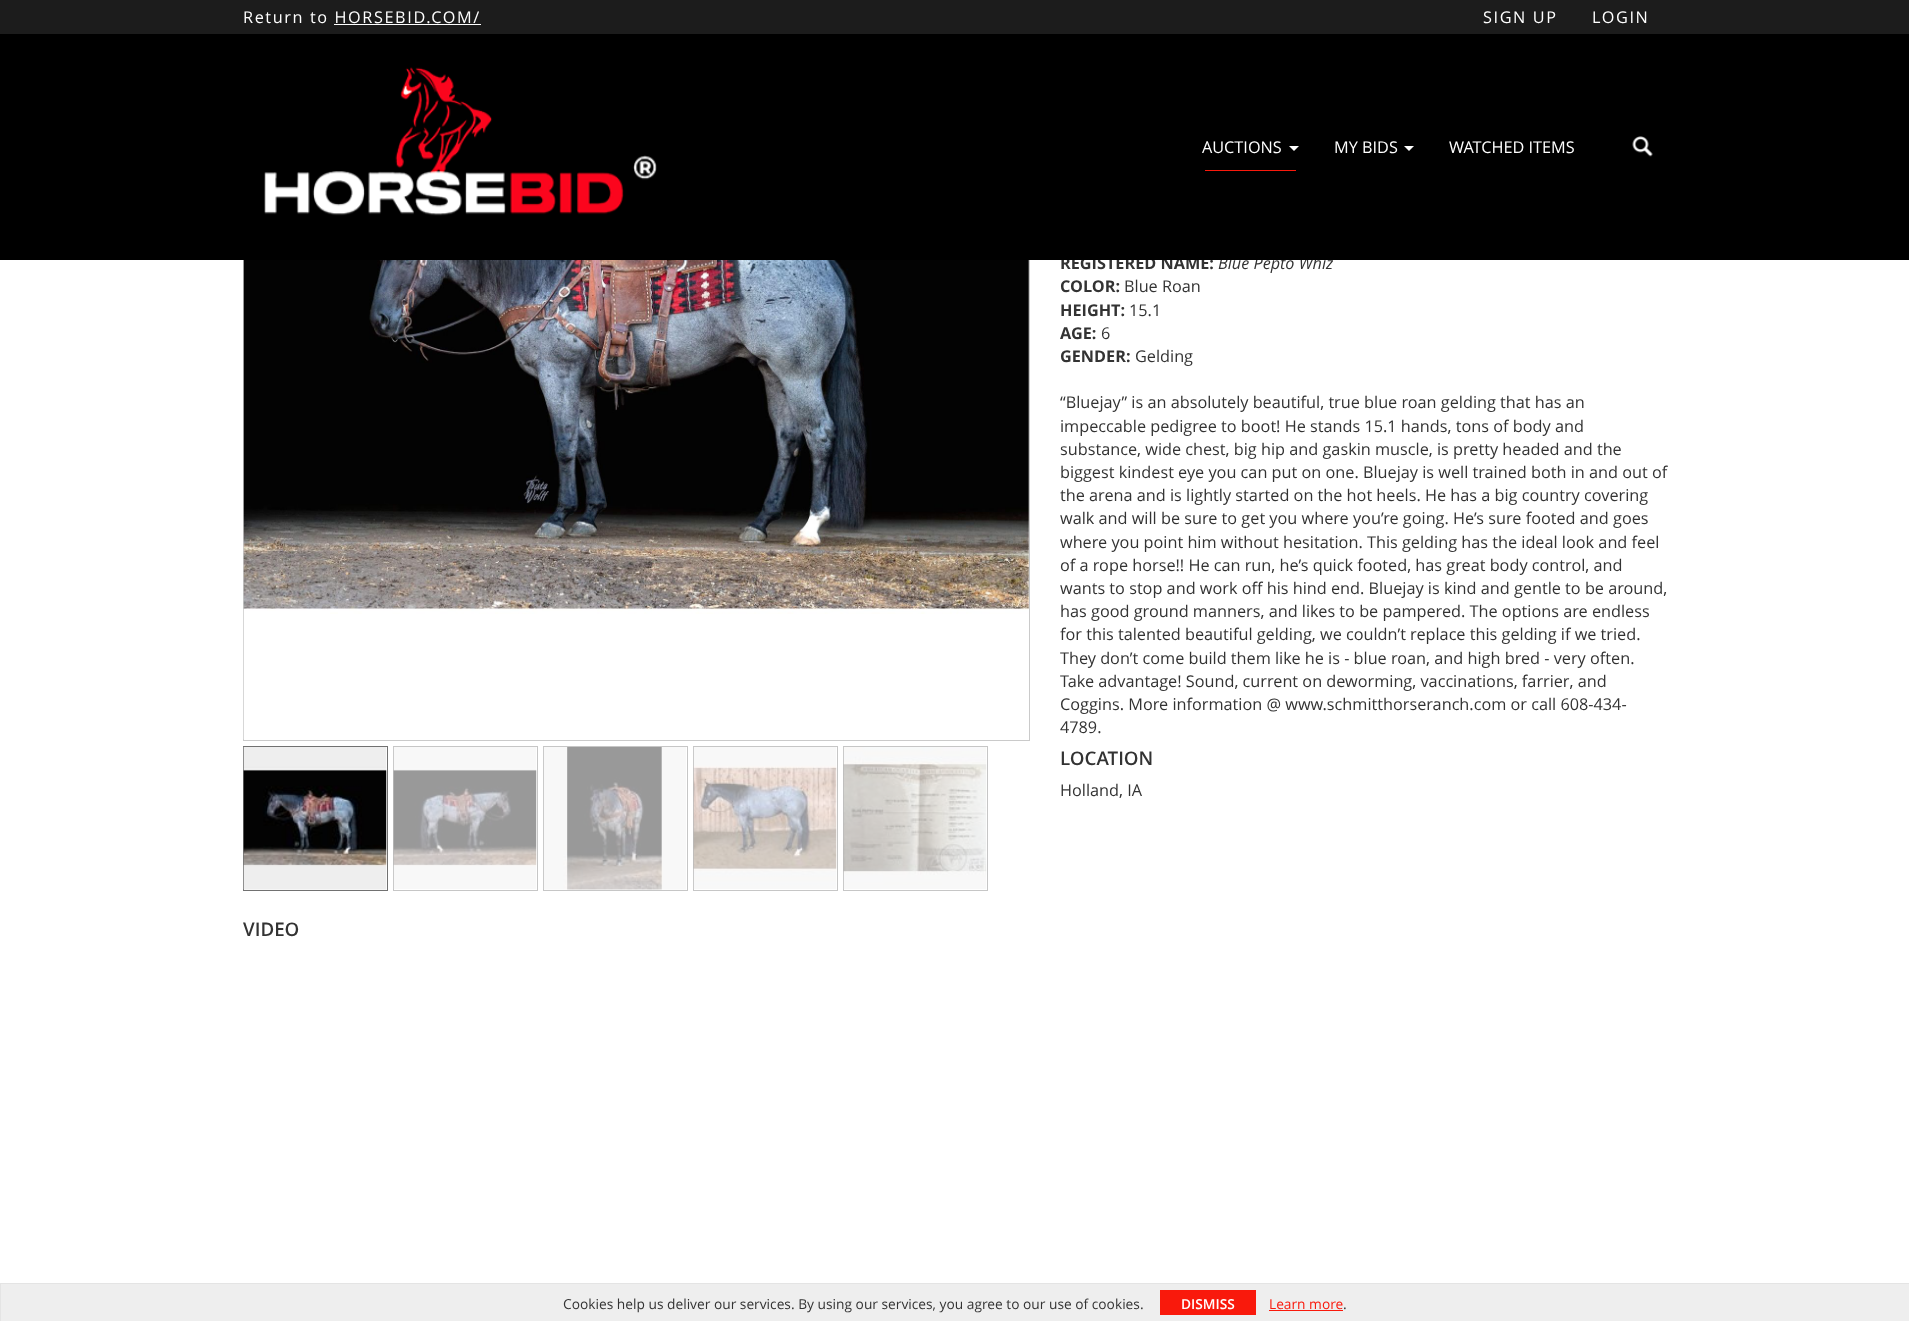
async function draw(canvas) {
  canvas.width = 1909
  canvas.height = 1321
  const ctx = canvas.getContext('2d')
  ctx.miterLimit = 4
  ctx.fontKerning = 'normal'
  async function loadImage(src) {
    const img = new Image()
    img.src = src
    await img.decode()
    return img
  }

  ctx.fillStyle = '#fff'
  ctx.fillRect(0, 0, 1909, 1321)
  ctx.strokeStyle = '#cacaca'
  ctx.strokeRect(243.5, -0.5, 786, 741)
  ctx.fillStyle = '#1c1c1c'
  ctx.fillRect(0, 0, 1909, 34)
  ctx.letterSpacing = '1.6px'
  ctx.font = '16.25px Open Sans'
  ctx.fillStyle = '#fff'
  ctx.fillText('Return to HORSEBID.COM/', 243, 23)
  ctx.fillRect(334, 24, 147, 1)
  ctx.fillText('SIGN UP', 1483, 23)
  ctx.fillText('LOGIN', 1592, 23)
  ctx.letterSpacing = '0px'
  ctx.font = 'bold 16.25px Open Sans'
  ctx.fillStyle = '#333'
  ctx.fillText('REGISTERED NAME:', 1060, 269)
  ctx.font = 'italic 16.25px Open Sans'
  ctx.fillText('Blue Pepto Whiz', 1218, 269)
  ctx.fillStyle = '#000'
  ctx.fillRect(0, 34, 1909, 226)
  ctx.drawImage(await loadImage('image0.png'), 264, 67, 393, 149)
  ctx.font = '16.25px Open Sans'
  ctx.fillStyle = '#fff'
  ctx.fillText('AUCTIONS', 1202, 153)
  ctx.beginPath()
  ctx.moveTo(1289, 146)
  ctx.lineTo(1299, 146)
  ctx.lineTo(1294, 151)
  ctx.closePath()
  ctx.fill()
  ctx.fillStyle = '#f9190c'
  ctx.fillRect(1205, 170, 91, 1)
  ctx.fillStyle = '#fff'
  ctx.fillText('MY BIDS', 1334, 153)
  ctx.beginPath()
  ctx.moveTo(1404, 146)
  ctx.lineTo(1414, 146)
  ctx.lineTo(1409, 151)
  ctx.closePath()
  ctx.fill()
  ctx.fillText('WATCHED ITEMS', 1449, 153)
  ctx.drawImage(await loadImage('image1.png'), 1632, 136, 21, 21)
  ctx.font = 'bold 16.25px Open Sans'
  ctx.fillStyle = '#333'
  ctx.fillText('COLOR:', 1060, 292)
  ctx.font = '16.25px Open Sans'
  ctx.fillText('Blue Roan', 1124, 292)
  ctx.font = 'bold 16.25px Open Sans'
  ctx.fillText('HEIGHT:', 1060, 316)
  ctx.font = '16.25px Open Sans'
  ctx.fillText('15.1', 1129, 316)
  ctx.font = 'bold 16.25px Open Sans'
  ctx.fillText('AGE:', 1060, 339)
  ctx.font = '16.25px Open Sans'
  ctx.fillText('6', 1101, 339)
  ctx.font = 'bold 16.25px Open Sans'
  ctx.fillText('GENDER:', 1060, 362)
  ctx.font = '16.25px Open Sans'
  ctx.fillText('Gelding', 1135, 362)
  ctx.fillText('“Bluejay” is an absolutely beautiful, true blue roan gelding that has an', 1060, 408)
  ctx.fillText('impeccable pedigree to boot! He stands 15.1 hands, tons of body and', 1060, 432)
  ctx.fillText('substance, wide chest, big hip and gaskin muscle, is pretty headed and the', 1060, 455)
  ctx.fillText('biggest kindest eye you can put on one. Bluejay is well trained both in and out of', 1060, 478)
  ctx.fillText('the arena and is lightly started on the hot heels. He has a big country covering', 1060, 501)
  ctx.fillText('walk and will be sure to get you where you’re going. He’s sure footed and goes', 1060, 524)
  ctx.fillText('where you point him without hesitation. This gelding has the ideal look and feel', 1060, 548)
  ctx.fillText('of a rope horse!! He can run, he’s quick footed, has great body control, and', 1060, 571)
  ctx.fillText('wants to stop and work off his hind end. Bluejay is kind and gentle to be around,', 1060, 594)
  ctx.fillText('has good ground manners, and likes to be pampered. The options are endless', 1060, 617)
  ctx.fillText('for this talented beautiful gelding, we couldn’t replace this gelding if we tried.', 1060, 640)
  ctx.fillText('They don’t come build them like he is - blue roan, and high bred - very often.', 1060, 664)
  ctx.fillText('Take advantage! Sound, current on deworming, vaccinations, farrier, and', 1060, 687)
  ctx.fillText('Coggins. More information @ www.schmitthorseranch.com or call 608-434-', 1060, 710)
  ctx.fillText('4789.', 1060, 733)
  ctx.font = '600 18.75px Open Sans'
  ctx.fillText('LOCATION', 1060, 765)
  ctx.font = '16.25px Open Sans'
  ctx.fillText('Holland, IA', 1060, 796)
  ctx.drawImage(await loadImage('image2.png'), 243, 260, 786, 480)
  ctx.strokeStyle = '#717171'
  ctx.strokeRect(243.5, 746.5, 144, 144)
  ctx.strokeStyle = '#c6c6c6'
  ctx.strokeRect(393.5, 746.5, 144, 144)
  ctx.strokeRect(543.5, 746.5, 144, 144)
  ctx.strokeRect(693.5, 746.5, 144, 144)
  ctx.strokeRect(843.5, 746.5, 144, 144)
  ctx.drawImage(await loadImage('image3.png'), 243, 747, 144, 143)
  ctx.drawImage(await loadImage('image4.png'), 393, 747, 144, 142)
  ctx.drawImage(await loadImage('image5.png'), 543, 747, 143, 143)
  ctx.drawImage(await loadImage('image6.png'), 693, 747, 144, 142)
  ctx.drawImage(await loadImage('image7.png'), 843, 747, 144, 142)
  ctx.font = '600 18.75px Open Sans'
  ctx.fillText('VIDEO', 243, 936)
  ctx.fillStyle = '#eee'
  ctx.fillRect(1, 1284, 1908, 37)
  ctx.fillStyle = '#e4e4e4'
  ctx.fillRect(0, 1283, 1909, 1)
  ctx.fillRect(0, 1283, 1, 38)
  ctx.font = '13.75px Open Sans'
  ctx.fillStyle = '#333'
  ctx.fillText('Cookies help us deliver our services. By using our services, you agree to our use of cookies.', 563, 1309)
  ctx.fillStyle = '#f9190c'
  ctx.fillRect(1160, 1290, 96, 25)
  ctx.font = '600 13.75px Open Sans'
  ctx.fillStyle = '#fff'
  ctx.fillText('DISMISS', 1181, 1309)
  ctx.font = '13.75px Open Sans'
  ctx.fillStyle = '#f9190c'
  ctx.fillText('Learn more', 1269, 1309)
  ctx.fillRect(1269, 1310, 74, 1)
  ctx.fillStyle = '#333'
  ctx.fillText('.', 1343, 1309)
}

draw(document.querySelector('canvas'))
